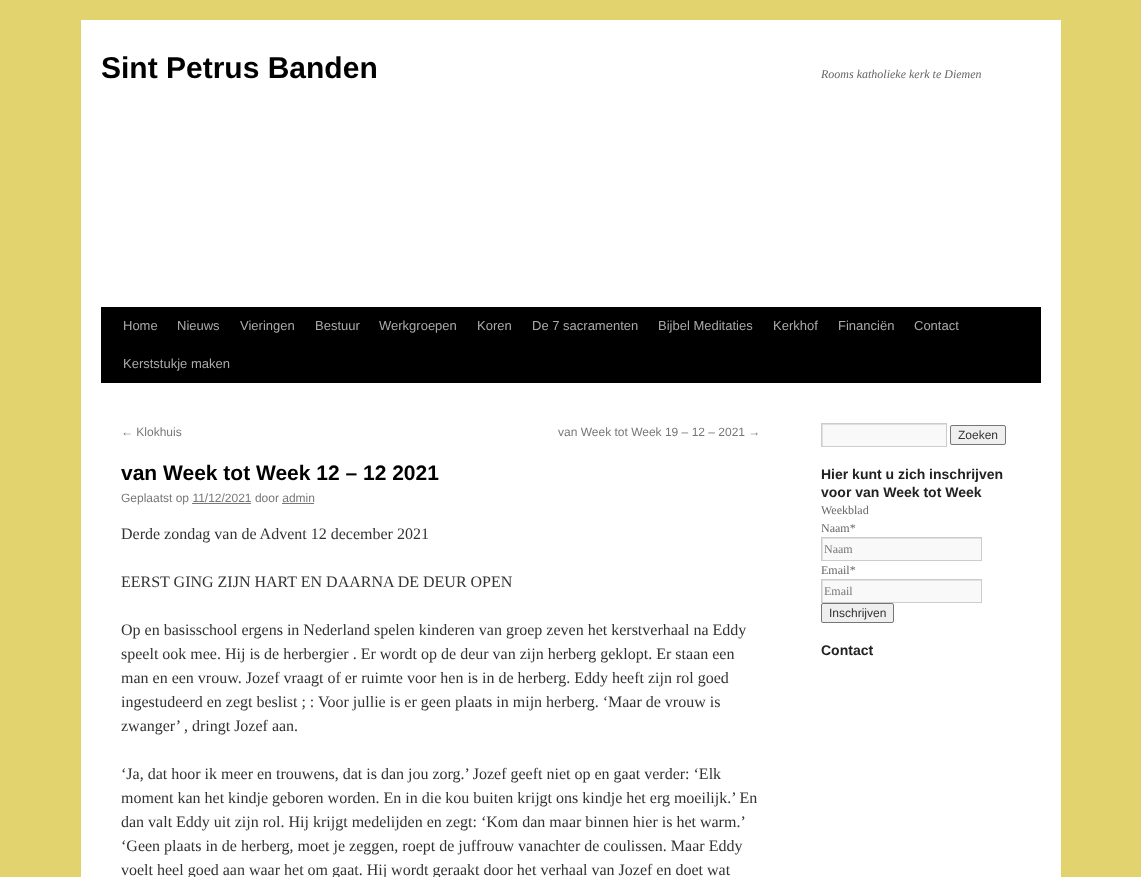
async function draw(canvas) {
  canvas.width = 1141
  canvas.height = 877
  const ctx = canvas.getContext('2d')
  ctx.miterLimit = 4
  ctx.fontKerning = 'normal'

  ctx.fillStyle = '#e2d36f'
  ctx.fillRect(0, 0, 1141, 877)
  ctx.fillStyle = '#fff'
  ctx.fillRect(81, 20, 980, 857)
  ctx.font = 'bold 30px Liberation Sans'
  ctx.fillStyle = '#000'
  ctx.fillText('Sint Petrus Banden', 101, 78)
  ctx.font = 'italic 12px Liberation Serif'
  ctx.fillStyle = '#666'
  ctx.fillText('Rooms katholieke kerk te Diemen', 821, 78)
  ctx.fillStyle = '#000'
  ctx.fillRect(101, 307, 940, 76)
  ctx.font = '13px Liberation Sans'
  ctx.fillStyle = '#aaa'
  ctx.fillText('Home', 123, 330)
  ctx.fillText('Nieuws', 177, 330)
  ctx.fillText('Vieringen', 240, 330)
  ctx.fillText('Bestuur', 315, 330)
  ctx.fillText('Werkgroepen', 379, 330)
  ctx.fillText('Koren', 477, 330)
  ctx.fillText('De 7 sacramenten', 532, 330)
  ctx.fillText('Bijbel Meditaties', 658, 330)
  ctx.fillText('Kerkhof', 773, 330)
  ctx.fillText('Financiën', 838, 330)
  ctx.fillText('Contact', 914, 330)
  ctx.fillText('Kerststukje maken', 123, 368)
  ctx.font = '12px Liberation Sans'
  ctx.fillStyle = '#777'
  ctx.fillText('← Klokhuis', 121, 436)
  ctx.fillText('van Week tot Week 19 – 12 – 2021 →', 558, 436)
  ctx.font = 'bold 21px Liberation Sans'
  ctx.fillStyle = '#000'
  ctx.fillText('van Week tot Week 12 – 12 2021', 121, 480)
  ctx.font = '12px Liberation Sans'
  ctx.fillStyle = '#777'
  ctx.fillText('Geplaatst op 11/12/2021 door admin', 121, 502)
  ctx.fillRect(192, 503, 59, 1)
  ctx.fillRect(282, 503, 32, 1)
  ctx.font = '16px Liberation Serif'
  ctx.fillStyle = '#333'
  ctx.fillText('Derde zondag van de Advent 12 december 2021', 121, 539)
  ctx.fillText('EERST GING ZIJN HART EN DAARNA DE DEUR OPEN', 121, 587)
  ctx.fillText('Op en basisschool ergens in Nederland spelen kinderen van groep zeven het kerstverhaal na Eddy', 121, 635)
  ctx.fillText('speelt ook mee. Hij is de herbergier . Er wordt op de deur van zijn herberg geklopt. Er staan een', 121, 659)
  ctx.fillText('man en een vrouw. Jozef vraagt of er ruimte voor hen is in de herberg. Eddy heeft zijn rol goed', 121, 683)
  ctx.fillText('ingestudeerd en zegt beslist ; : Voor jullie is er geen plaats in mijn herberg. ‘Maar de vrouw is', 121, 707)
  ctx.fillText('zwanger’ , dringt Jozef aan.', 121, 731)
  ctx.fillText('‘Ja, dat hoor ik meer en trouwens, dat is dan jou zorg.’ Jozef geeft niet op en gaat verder: ‘Elk', 121, 779)
  ctx.fillText('moment kan het kindje geboren worden. En in die kou buiten krijgt ons kindje het erg moeilijk.’ En', 121, 803)
  ctx.fillText('dan valt Eddy uit zijn rol. Hij krijgt medelijden en zegt: ‘Kom dan maar binnen hier is het warm.’', 121, 827)
  ctx.fillText('‘Geen plaats in de herberg, moet je zeggen, roept de juffrouw vanachter de coulissen. Maar Eddy', 121, 851)
  ctx.fillText('voelt heel goed aan waar het om gaat. Hij wordt geraakt door het verhaal van Jozef en doet wat', 121, 875)
  ctx.fillStyle = '#f9f9f9'
  ctx.fillRect(823, 425, 123, 21)
  ctx.save()
  ctx.beginPath()
  ctx.rect(822, 424, 124, 22)
  ctx.clip()
  ctx.fillStyle = '#e0e0e0'
  ctx.beginPath()
  ctx.moveTo(723, 325)
  ctx.lineTo(1045, 325)
  ctx.lineTo(1045, 545)
  ctx.lineTo(723, 545)
  ctx.closePath()
  ctx.moveTo(823, 425)
  ctx.lineTo(947, 425)
  ctx.lineTo(947, 447)
  ctx.lineTo(823, 447)
  ctx.closePath()
  ctx.fill('evenodd')
  ctx.restore()
  ctx.strokeStyle = '#ccc'
  ctx.strokeRect(821.5, 423.5, 125, 23)
  ctx.fillStyle = '#efefef'
  ctx.beginPath()
  ctx.roundRect(950.5, 425.5, 55, 19, 1.5)
  ctx.fill()
  ctx.strokeStyle = '#767676'
  ctx.stroke()
  ctx.font = '12px Liberation Sans'
  ctx.fillStyle = '#333'
  ctx.fillText('Zoeken', 958, 439)
  ctx.font = 'bold 14px Liberation Sans'
  ctx.fillStyle = '#222'
  ctx.fillText('Hier kunt u zich inschrijven', 821, 479)
  ctx.fillText('voor van Week tot Week', 821, 497)
  ctx.font = '12px Liberation Serif'
  ctx.fillStyle = '#666'
  ctx.fillText('Weekblad', 821, 514)
  ctx.fillText('Naam*', 821, 532)
  ctx.fillStyle = '#f9f9f9'
  ctx.fillRect(823, 539, 158, 21)
  ctx.save()
  ctx.beginPath()
  ctx.rect(822, 538, 159, 22)
  ctx.clip()
  ctx.fillStyle = '#e0e0e0'
  ctx.beginPath()
  ctx.moveTo(723, 439)
  ctx.lineTo(1080, 439)
  ctx.lineTo(1080, 659)
  ctx.lineTo(723, 659)
  ctx.closePath()
  ctx.moveTo(823, 539)
  ctx.lineTo(982, 539)
  ctx.lineTo(982, 561)
  ctx.lineTo(823, 561)
  ctx.closePath()
  ctx.fill('evenodd')
  ctx.restore()
  ctx.strokeStyle = '#ccc'
  ctx.strokeRect(821.5, 537.5, 160, 23)
  ctx.fillStyle = '#777'
  ctx.fillText('Naam', 824, 553)
  ctx.fillStyle = '#666'
  ctx.fillText('Email*', 821, 574)
  ctx.fillStyle = '#f9f9f9'
  ctx.fillRect(823, 581, 158, 21)
  ctx.save()
  ctx.beginPath()
  ctx.rect(822, 580, 159, 22)
  ctx.clip()
  ctx.fillStyle = '#e0e0e0'
  ctx.beginPath()
  ctx.moveTo(723, 481)
  ctx.lineTo(1080, 481)
  ctx.lineTo(1080, 701)
  ctx.lineTo(723, 701)
  ctx.closePath()
  ctx.moveTo(823, 581)
  ctx.lineTo(982, 581)
  ctx.lineTo(982, 603)
  ctx.lineTo(823, 603)
  ctx.closePath()
  ctx.fill('evenodd')
  ctx.restore()
  ctx.strokeRect(821.5, 579.5, 160, 23)
  ctx.fillStyle = '#777'
  ctx.fillText('Email', 824, 595)
  ctx.fillStyle = '#efefef'
  ctx.beginPath()
  ctx.roundRect(821.5, 603.5, 72, 19, 1.5)
  ctx.fill()
  ctx.strokeStyle = '#767676'
  ctx.stroke()
  ctx.font = '12px Liberation Sans'
  ctx.fillStyle = '#333'
  ctx.fillText('Inschrijven', 829, 617)
  ctx.font = 'bold 14px Liberation Sans'
  ctx.fillStyle = '#222'
  ctx.fillText('Contact', 821, 655)
}

draw(document.querySelector('canvas'))
